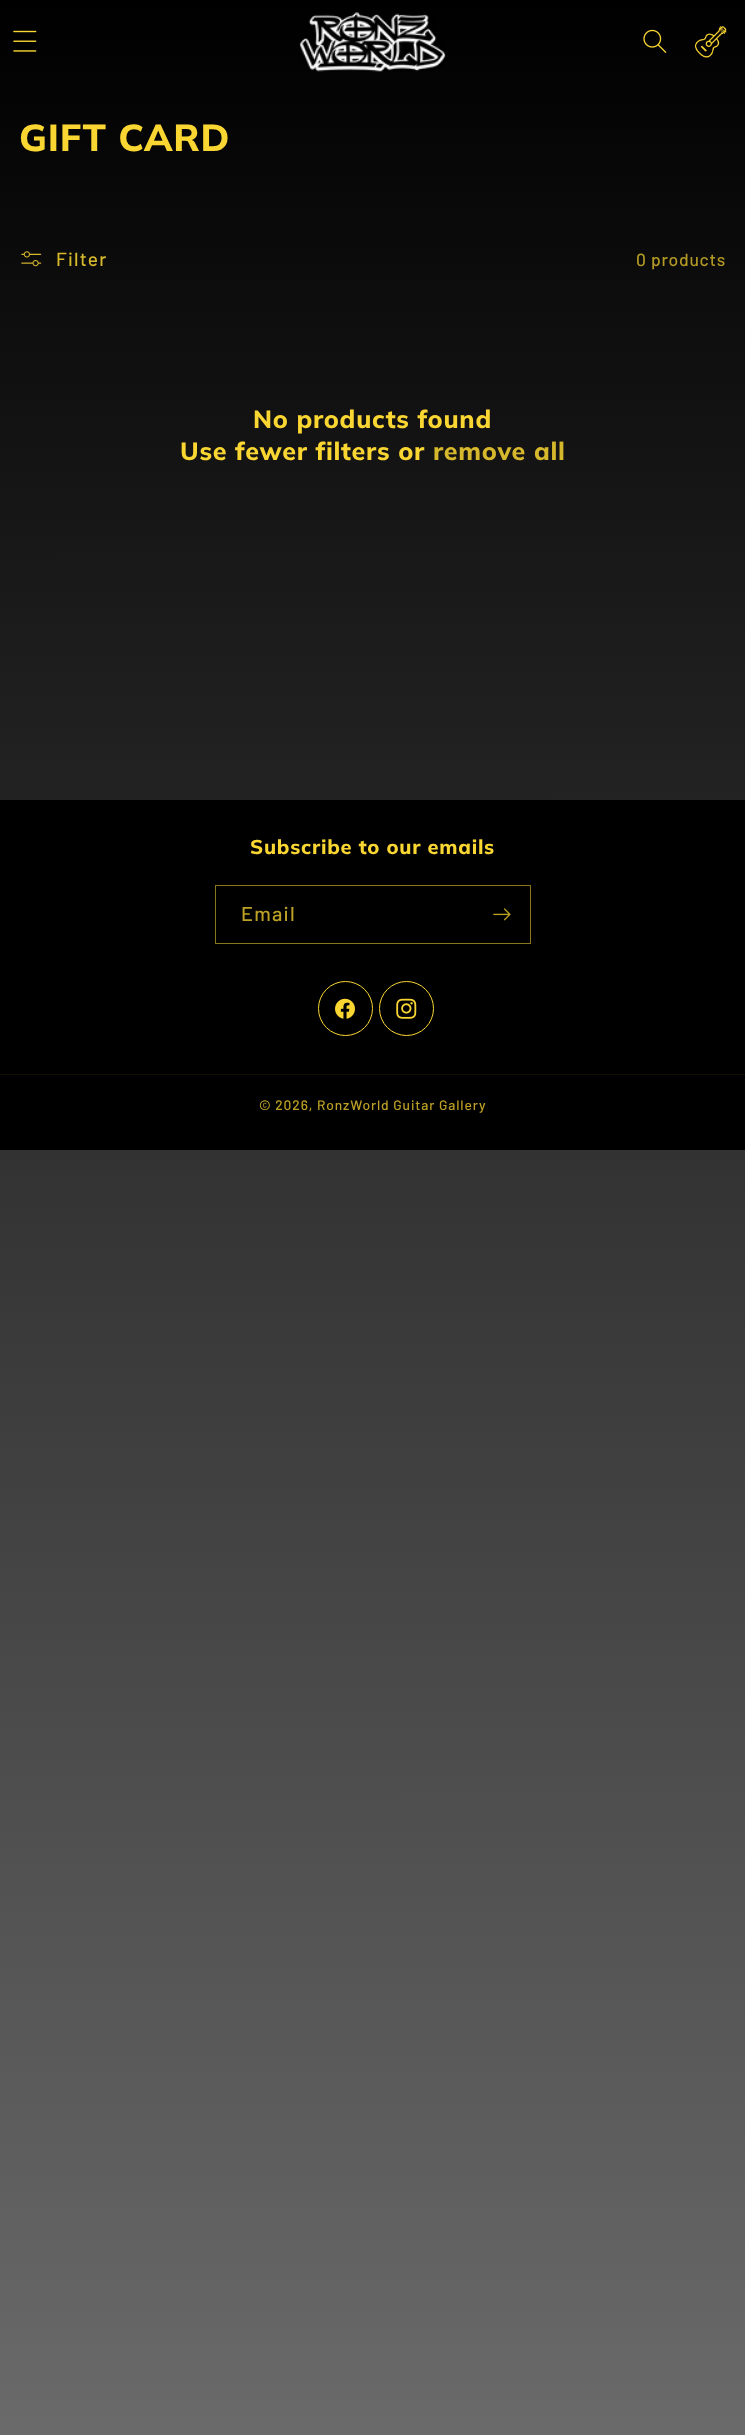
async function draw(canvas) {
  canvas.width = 745
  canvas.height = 2435
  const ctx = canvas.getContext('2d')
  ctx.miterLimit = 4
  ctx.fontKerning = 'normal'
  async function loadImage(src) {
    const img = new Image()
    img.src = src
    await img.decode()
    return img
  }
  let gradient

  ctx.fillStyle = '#fff'
  ctx.fillRect(0, 0, 745, 2435)
  gradient = ctx.createLinearGradient(372, 0, 373, 2435)
  gradient.addColorStop(0, '#000')
  gradient.addColorStop(1, '#6a6a6a')
  ctx.fillStyle = gradient
  ctx.fillRect(0, 0, 745, 2435)
  ctx.drawImage(await loadImage('image0.png'), 13, 30, 24, 22)
  ctx.drawImage(await loadImage('image1.png'), 299, 12, 147, 60)
  ctx.drawImage(await loadImage('image2.png'), 643, 29, 24, 24)
  ctx.drawImage(await loadImage('image3.png'), 695, 26, 32, 32)
  ctx.letterSpacing = '0.75px'
  ctx.font = '800 37.5px Muli'
  ctx.fillStyle = '#fad632'
  ctx.fillText('GIFT CARD', 19, 151)
  ctx.drawImage(await loadImage('image4.png'), 21, 251, 21, 16)
  ctx.letterSpacing = '1.25px'
  ctx.font = '500 19px Barlow'
  ctx.fillStyle = '#d6b82c'
  ctx.fillText('Filter', 56, 266)
  ctx.letterSpacing = '0.75px'
  ctx.font = '500 17.5px Barlow'
  ctx.fillStyle = '#b29926'
  ctx.fillText('0 products', 636, 266)
  ctx.font = '800 25px Muli'
  ctx.fillStyle = '#fad632'
  ctx.fillText('No products found', 253, 428)
  ctx.fillText('Use fewer filters or', 180, 460)
  ctx.fillStyle = '#d6b82c'
  ctx.fillText('remove all', 433, 460)
  ctx.fillStyle = '#000'
  ctx.fillRect(0, 800, 745, 350)
  ctx.font = '800 20px Muli'
  ctx.fillStyle = '#fad632'
  ctx.fillText('Subscribe to our emails', 250, 854)
  ctx.strokeStyle = '#8a761c'
  ctx.strokeRect(215.5, 885.5, 315, 58)
  ctx.letterSpacing = '1.25px'
  ctx.font = '500 20px Barlow'
  ctx.fillStyle = '#bca126'
  ctx.fillText('Email', 241, 921)
  ctx.drawImage(await loadImage('image5.png'), 493, 908, 18, 13)
  ctx.beginPath()
  ctx.arc(345.5, 1008.5, 27, 0, 2 * Math.PI)
  ctx.strokeStyle = '#fad632'
  ctx.stroke()
  ctx.drawImage(await loadImage('image6.png'), 335, 998, 20, 21)
  ctx.beginPath()
  ctx.arc(406.5, 1008.5, 27, 0, 2 * Math.PI)
  ctx.stroke()
  ctx.drawImage(await loadImage('image7.png'), 396, 998, 21, 21)
  ctx.fillStyle = '#141104'
  ctx.fillRect(0, 1074, 745, 1)
  ctx.letterSpacing = '0.9px'
  ctx.font = '500 13.75px Barlow'
  ctx.fillStyle = '#bca126'
  ctx.fillText('© 2026, RonzWorld Guitar Gallery', 259, 1110)
}

draw(document.querySelector('canvas'))
